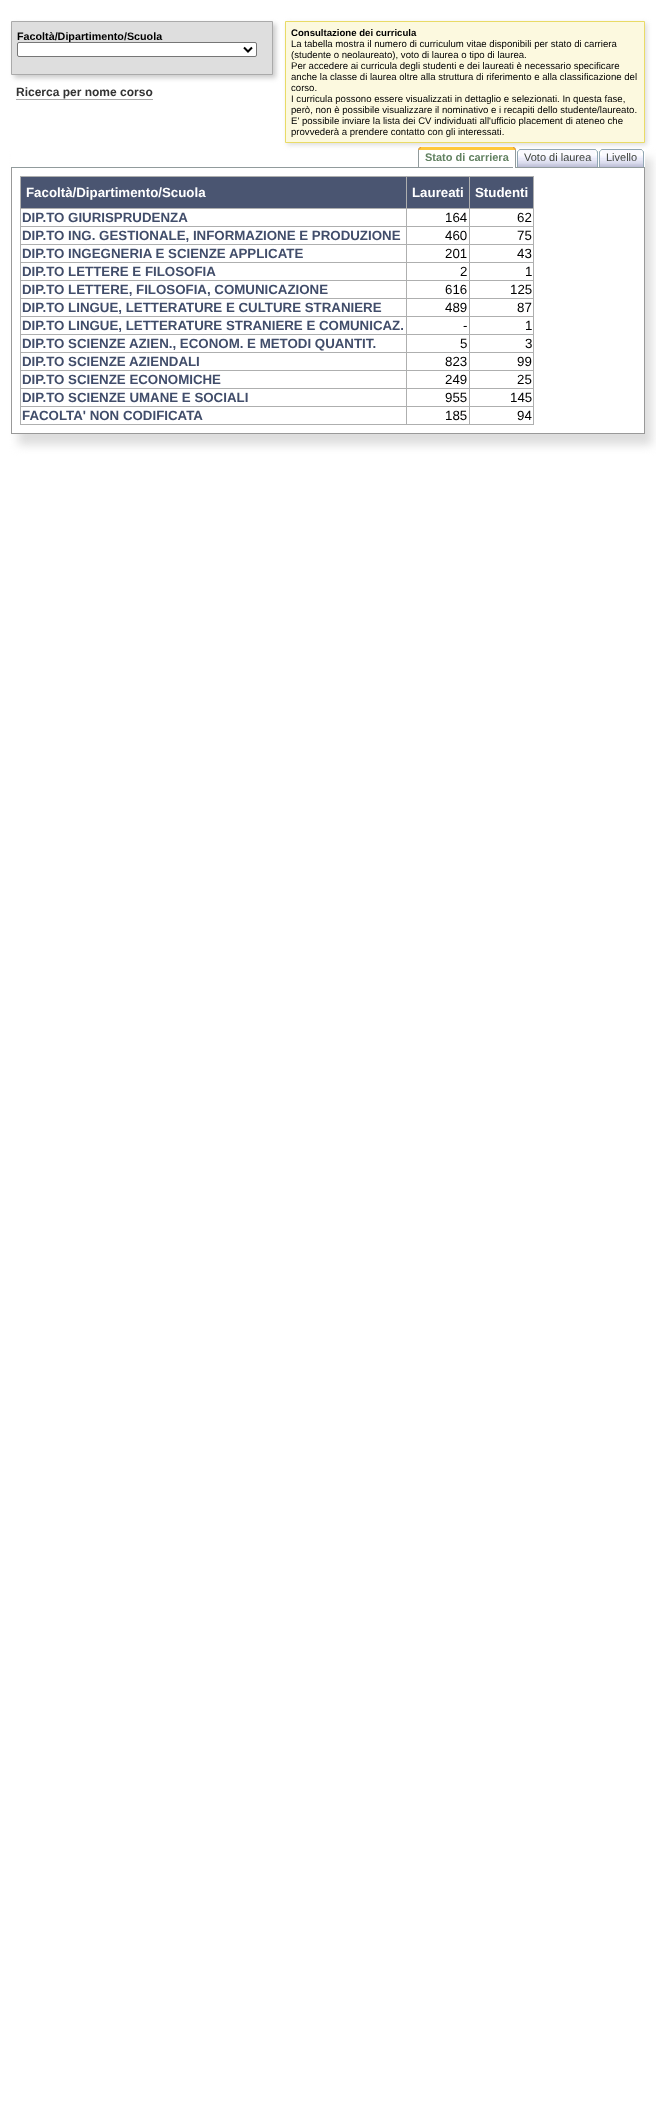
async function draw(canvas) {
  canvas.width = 656
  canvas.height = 2104
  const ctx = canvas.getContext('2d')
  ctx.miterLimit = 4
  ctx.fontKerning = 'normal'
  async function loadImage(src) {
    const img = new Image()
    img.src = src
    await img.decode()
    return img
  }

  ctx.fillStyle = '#fff'
  ctx.fillRect(0, 0, 656, 2104)
  ctx.fillStyle = '#ccc'
  ctx.filter = 'blur(2.5px)'
  ctx.beginPath()
  ctx.rect(14, 24, 262, 54)
  ctx.fill()
  ctx.filter = 'none'
  ctx.fillStyle = '#dedede'
  ctx.beginPath()
  ctx.rect(11.5, 21.5, 261, 53)
  ctx.fill()
  ctx.strokeStyle = '#aaa'
  ctx.stroke()
  ctx.font = 'bold 10.75px Liberation Sans'
  ctx.fillStyle = '#000'
  ctx.fillText('Facoltà/Dipartimento/Scuola', 17, 40)
  ctx.fillStyle = '#fff'
  ctx.beginPath()
  ctx.roundRect(17.5, 42.5, 239, 14, 1.5)
  ctx.fill()
  ctx.strokeStyle = '#767676'
  ctx.stroke()
  ctx.beginPath()
  ctx.moveTo(244, 47.5)
  ctx.lineTo(248, 51.5)
  ctx.lineTo(252, 47.5)
  ctx.strokeStyle = '#000'
  ctx.lineWidth = 2
  ctx.stroke()
  ctx.font = 'bold 12px Liberation Sans'
  ctx.fillStyle = '#333'
  ctx.fillText('Ricerca per nome corso', 16, 96)
  ctx.fillStyle = '#aaa'
  ctx.fillRect(16, 99, 137, 1)
  ctx.fillStyle = '#ddd'
  ctx.filter = 'blur(2.5px)'
  ctx.beginPath()
  ctx.rect(287, 23, 360, 122)
  ctx.fill()
  ctx.filter = 'none'
  ctx.fillStyle = '#fcf9df'
  ctx.beginPath()
  ctx.rect(285.5, 21.5, 359, 121)
  ctx.fill()
  ctx.strokeStyle = '#e9db66'
  ctx.lineWidth = 1
  ctx.stroke()
  ctx.font = 'bold 9.6px Liberation Sans'
  ctx.fillStyle = '#000'
  ctx.fillText('Consultazione dei curricula', 291, 36)
  ctx.font = '9.6px Liberation Sans'
  ctx.fillText('La tabella mostra il numero di curriculum vitae disponibili per stato di carriera', 291, 47)
  ctx.fillText('(studente o neolaureato), voto di laurea o tipo di laurea.', 291, 58)
  ctx.fillText('Per accedere ai curricula degli studenti e dei laureati è necessario specificare', 291, 69)
  ctx.fillText('anche la classe di laurea oltre alla struttura di riferimento e alla classificazione del', 291, 80)
  ctx.fillText('corso.', 291, 91)
  ctx.fillText('I curricula possono essere visualizzati in dettaglio e selezionati. In questa fase,', 291, 102)
  ctx.fillText('però, non è possibile visualizzare il nominativo e i recapiti dello studente/laureato.', 291, 113)
  ctx.fillText('E\' possibile inviare la lista dei CV individuati all\'ufficio placement di ateneo che', 291, 124)
  ctx.fillText('provvederà a prendere contatto con gli interessati.', 291, 135)
  ctx.save()
  ctx.beginPath()
  ctx.moveTo(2, 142)
  ctx.lineTo(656, 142)
  ctx.lineTo(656, 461)
  ctx.lineTo(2, 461)
  ctx.closePath()
  ctx.moveTo(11, 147)
  ctx.lineTo(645, 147)
  ctx.lineTo(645, 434)
  ctx.lineTo(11, 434)
  ctx.closePath()
  ctx.clip('evenodd')
  ctx.fillStyle = '#ddd'
  ctx.filter = 'blur(5px)'
  ctx.beginPath()
  ctx.rect(18, 158, 634, 287)
  ctx.fill()
  ctx.filter = 'none'
  ctx.restore()
  ctx.fillStyle = '#919b9c'
  ctx.fillRect(11, 167, 634, 1)
  ctx.drawImage(await loadImage('image0.png'), 513, 147, 3, 21)
  ctx.drawImage(await loadImage('image1.png'), 418, 147, 3, 20)
  ctx.fillStyle = '#ffc83c'
  ctx.fillRect(421, 147, 92, 3)
  ctx.font = 'bold 11px Liberation Sans'
  ctx.fillStyle = '#628262'
  ctx.fillText('Stato di carriera', 425, 161)
  ctx.drawImage(await loadImage('image2.png'), 595, 149, 3, 18)
  ctx.drawImage(await loadImage('image3.png'), 517, 149, 3, 18)
  ctx.drawImage(await loadImage('image4.png'), 520, 149, 75, 18)
  ctx.font = '11px Liberation Sans'
  ctx.fillStyle = '#3e423c'
  ctx.fillText('Voto di laurea', 524, 161)
  ctx.drawImage(await loadImage('image2.png'), 641, 149, 3, 18)
  ctx.drawImage(await loadImage('image3.png'), 599, 149, 3, 18)
  ctx.drawImage(await loadImage('image5.png'), 602, 149, 39, 18)
  ctx.fillText('Livello', 606, 161)
  ctx.fillStyle = '#999'
  ctx.fillRect(644, 168, 1, 266)
  ctx.fillRect(11, 433, 634, 1)
  ctx.fillRect(11, 168, 1, 266)
  ctx.fillStyle = '#aeafaf'
  ctx.fillRect(20, 176, 514, 1)
  ctx.fillRect(533, 176, 1, 249)
  ctx.fillRect(20, 424, 514, 1)
  ctx.fillRect(20, 176, 1, 249)
  ctx.fillStyle = '#4a5571'
  ctx.fillRect(21, 177, 385, 31)
  ctx.font = 'bold 13.3px Liberation Sans'
  ctx.fillStyle = '#fff'
  ctx.fillText('Facoltà/Dipartimento/Scuola', 26, 197)
  ctx.fillStyle = '#4a5571'
  ctx.fillRect(407, 177, 62, 31)
  ctx.fillStyle = '#aeafaf'
  ctx.fillRect(469, 208, 65, 1)
  ctx.fillRect(469, 226, 65, 1)
  ctx.fillRect(469, 244, 65, 1)
  ctx.fillRect(469, 262, 65, 1)
  ctx.fillRect(469, 280, 65, 1)
  ctx.fillRect(469, 298, 65, 1)
  ctx.fillRect(469, 316, 65, 1)
  ctx.fillRect(469, 334, 65, 1)
  ctx.fillRect(469, 352, 65, 1)
  ctx.fillRect(469, 370, 65, 1)
  ctx.fillRect(469, 388, 65, 1)
  ctx.fillRect(469, 406, 65, 1)
  ctx.fillRect(469, 406, 1, 19)
  ctx.fillRect(406, 406, 64, 1)
  ctx.fillRect(469, 388, 1, 19)
  ctx.fillRect(406, 388, 64, 1)
  ctx.fillRect(469, 370, 1, 19)
  ctx.fillRect(406, 370, 64, 1)
  ctx.fillRect(469, 352, 1, 19)
  ctx.fillRect(406, 352, 64, 1)
  ctx.fillRect(469, 334, 1, 19)
  ctx.fillRect(406, 334, 64, 1)
  ctx.fillRect(469, 316, 1, 19)
  ctx.fillRect(406, 316, 64, 1)
  ctx.fillRect(469, 298, 1, 19)
  ctx.fillRect(406, 298, 64, 1)
  ctx.fillRect(469, 280, 1, 19)
  ctx.fillRect(406, 280, 64, 1)
  ctx.fillRect(469, 262, 1, 19)
  ctx.fillRect(406, 262, 64, 1)
  ctx.fillRect(469, 244, 1, 19)
  ctx.fillRect(406, 244, 64, 1)
  ctx.fillRect(469, 226, 1, 19)
  ctx.fillRect(406, 226, 64, 1)
  ctx.fillRect(469, 208, 1, 19)
  ctx.fillRect(406, 208, 64, 1)
  ctx.fillRect(406, 406, 1, 19)
  ctx.fillRect(20, 406, 387, 1)
  ctx.fillRect(406, 388, 1, 19)
  ctx.fillRect(20, 388, 387, 1)
  ctx.fillRect(406, 370, 1, 19)
  ctx.fillRect(20, 370, 387, 1)
  ctx.fillRect(406, 352, 1, 19)
  ctx.fillRect(20, 352, 387, 1)
  ctx.fillRect(406, 334, 1, 19)
  ctx.fillRect(20, 334, 387, 1)
  ctx.fillRect(406, 316, 1, 19)
  ctx.fillRect(20, 316, 387, 1)
  ctx.fillRect(406, 298, 1, 19)
  ctx.fillRect(20, 298, 387, 1)
  ctx.fillRect(406, 280, 1, 19)
  ctx.fillRect(20, 280, 387, 1)
  ctx.fillRect(406, 262, 1, 19)
  ctx.fillRect(20, 262, 387, 1)
  ctx.fillRect(406, 244, 1, 19)
  ctx.fillRect(20, 244, 387, 1)
  ctx.fillRect(406, 226, 1, 19)
  ctx.fillRect(20, 226, 387, 1)
  ctx.fillRect(406, 208, 1, 19)
  ctx.fillRect(20, 208, 387, 1)
  ctx.fillRect(406, 176, 1, 33)
  ctx.fillStyle = '#fff'
  ctx.fillText('Laureati', 412, 197)
  ctx.fillStyle = '#4a5571'
  ctx.fillRect(470, 177, 63, 31)
  ctx.fillStyle = '#aeafaf'
  ctx.fillRect(469, 176, 1, 33)
  ctx.fillStyle = '#fff'
  ctx.fillText('Studenti', 475, 197)
  ctx.fillStyle = '#414d6a'
  ctx.fillText('DIP.TO GIURISPRUDENZA', 22, 222)
  ctx.font = '13.3px Liberation Sans'
  ctx.fillStyle = '#000'
  ctx.fillText('164', 445, 222)
  ctx.fillText('62', 517, 222)
  ctx.font = 'bold 13.3px Liberation Sans'
  ctx.fillStyle = '#414d6a'
  ctx.fillText('DIP.TO ING. GESTIONALE, INFORMAZIONE E PRODUZIONE', 22, 240)
  ctx.font = '13.3px Liberation Sans'
  ctx.fillStyle = '#000'
  ctx.fillText('460', 445, 240)
  ctx.fillText('75', 517, 240)
  ctx.font = 'bold 13.3px Liberation Sans'
  ctx.fillStyle = '#414d6a'
  ctx.fillText('DIP.TO INGEGNERIA E SCIENZE APPLICATE', 22, 258)
  ctx.font = '13.3px Liberation Sans'
  ctx.fillStyle = '#000'
  ctx.fillText('201', 445, 258)
  ctx.fillText('43', 517, 258)
  ctx.font = 'bold 13.3px Liberation Sans'
  ctx.fillStyle = '#414d6a'
  ctx.fillText('DIP.TO LETTERE E FILOSOFIA', 22, 276)
  ctx.font = '13.3px Liberation Sans'
  ctx.fillStyle = '#000'
  ctx.fillText('2', 460, 276)
  ctx.fillText('1', 525, 276)
  ctx.font = 'bold 13.3px Liberation Sans'
  ctx.fillStyle = '#414d6a'
  ctx.fillText('DIP.TO LETTERE, FILOSOFIA, COMUNICAZIONE', 22, 294)
  ctx.font = '13.3px Liberation Sans'
  ctx.fillStyle = '#000'
  ctx.fillText('616', 445, 294)
  ctx.fillText('125', 510, 294)
  ctx.font = 'bold 13.3px Liberation Sans'
  ctx.fillStyle = '#414d6a'
  ctx.fillText('DIP.TO LINGUE, LETTERATURE E CULTURE STRANIERE', 22, 312)
  ctx.font = '13.3px Liberation Sans'
  ctx.fillStyle = '#000'
  ctx.fillText('489', 445, 312)
  ctx.fillText('87', 517, 312)
  ctx.font = 'bold 13.3px Liberation Sans'
  ctx.fillStyle = '#414d6a'
  ctx.fillText('DIP.TO LINGUE, LETTERATURE STRANIERE E COMUNICAZ.', 22, 330)
  ctx.font = '13.3px Liberation Sans'
  ctx.fillStyle = '#000'
  ctx.fillText('-', 463, 330)
  ctx.fillText('1', 525, 330)
  ctx.font = 'bold 13.3px Liberation Sans'
  ctx.fillStyle = '#414d6a'
  ctx.fillText('DIP.TO SCIENZE AZIEN., ECONOM. E METODI QUANTIT.', 22, 348)
  ctx.font = '13.3px Liberation Sans'
  ctx.fillStyle = '#000'
  ctx.fillText('5', 460, 348)
  ctx.fillText('3', 525, 348)
  ctx.font = 'bold 13.3px Liberation Sans'
  ctx.fillStyle = '#414d6a'
  ctx.fillText('DIP.TO SCIENZE AZIENDALI', 22, 366)
  ctx.font = '13.3px Liberation Sans'
  ctx.fillStyle = '#000'
  ctx.fillText('823', 445, 366)
  ctx.fillText('99', 517, 366)
  ctx.font = 'bold 13.3px Liberation Sans'
  ctx.fillStyle = '#414d6a'
  ctx.fillText('DIP.TO SCIENZE ECONOMICHE', 22, 384)
  ctx.font = '13.3px Liberation Sans'
  ctx.fillStyle = '#000'
  ctx.fillText('249', 445, 384)
  ctx.fillText('25', 517, 384)
  ctx.font = 'bold 13.3px Liberation Sans'
  ctx.fillStyle = '#414d6a'
  ctx.fillText('DIP.TO SCIENZE UMANE E SOCIALI', 22, 402)
  ctx.font = '13.3px Liberation Sans'
  ctx.fillStyle = '#000'
  ctx.fillText('955', 445, 402)
  ctx.fillText('145', 510, 402)
  ctx.font = 'bold 13.3px Liberation Sans'
  ctx.fillStyle = '#414d6a'
  ctx.fillText('FACOLTA\' NON CODIFICATA', 22, 420)
  ctx.font = '13.3px Liberation Sans'
  ctx.fillStyle = '#000'
  ctx.fillText('185', 445, 420)
  ctx.fillText('94', 517, 420)
}

draw(document.querySelector('canvas'))
